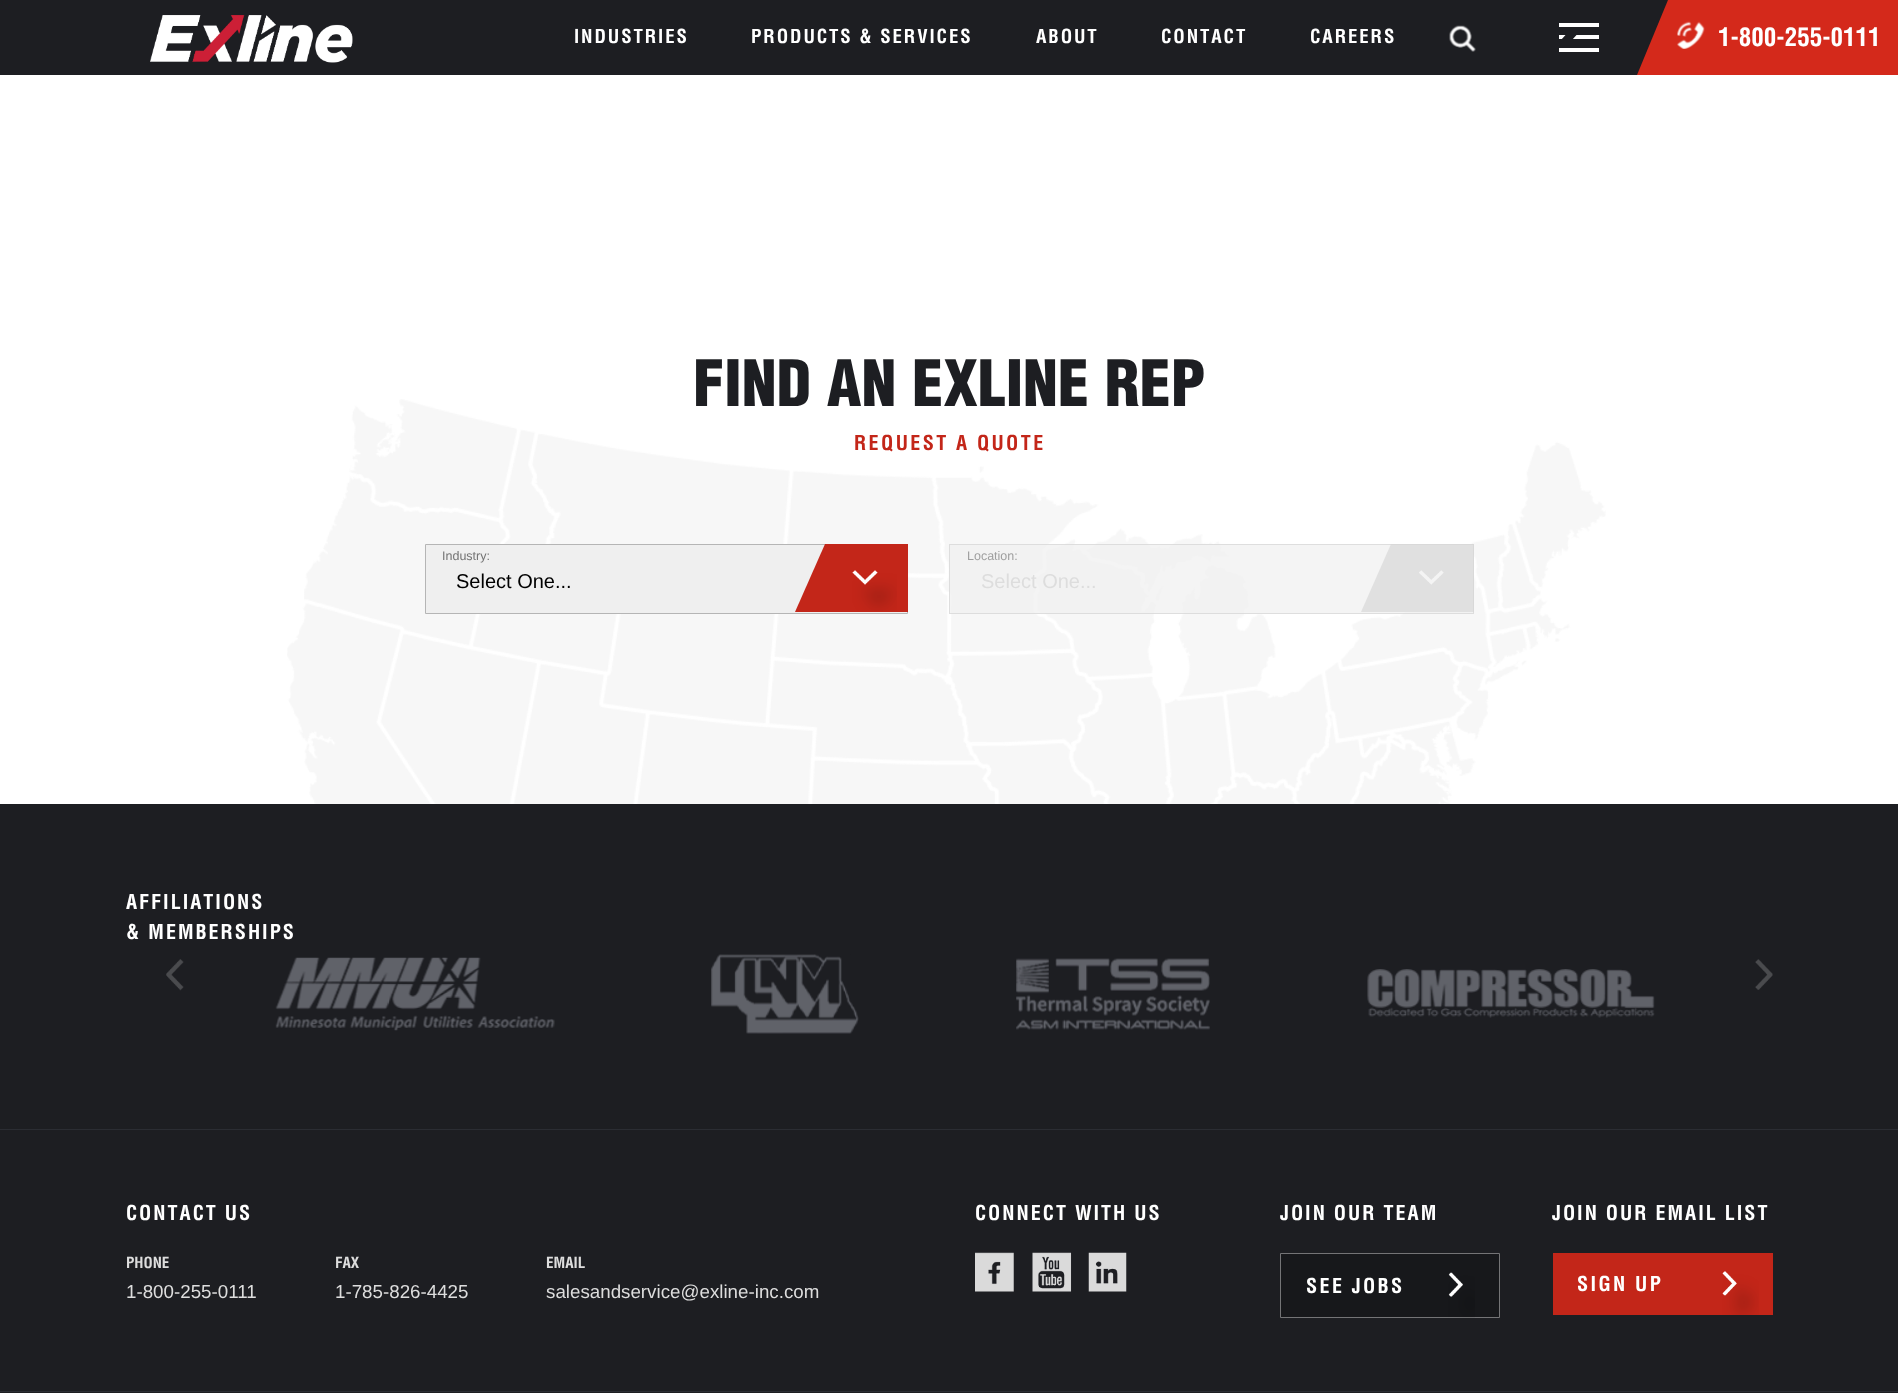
async function draw(canvas) {
  canvas.width = 1898
  canvas.height = 1393
  const ctx = canvas.getContext('2d')
  ctx.miterLimit = 4
  ctx.fontKerning = 'normal'
  async function loadImage(src) {
    const img = new Image()
    img.src = src
    await img.decode()
    return img
  }

  ctx.fillStyle = '#fff'
  ctx.fillRect(0, 0, 1898, 1393)
  ctx.fillStyle = '#1d1e22'
  ctx.fillRect(0, 0, 1668, 75)
  ctx.drawImage(await loadImage('image0.png'), 150, 15, 203, 48)
  ctx.letterSpacing = '1.9px'
  ctx.font = 'bold 18.75px Helvetica'
  ctx.fillStyle = '#fff'
  ctx.fillText('INDUSTRIES', 574, 43)
  ctx.fillText('PRODUCTS & SERVICES', 751, 43)
  ctx.fillText('ABOUT', 1036, 43)
  ctx.fillText('CONTACT', 1161, 43)
  ctx.fillText('CAREERS', 1310, 43)
  ctx.drawImage(await loadImage('image1.png'), 1449, 25, 27, 27)
  ctx.fillRect(1559, 23, 40, 4)
  ctx.save()
  ctx.beginPath()
  ctx.rect(1559, 35, 40, 4)
  ctx.clip()
  ctx.beginPath()
  ctx.moveTo(1533.5, 35)
  ctx.lineTo(1565.5, 35)
  ctx.lineTo(1561, 40)
  ctx.lineTo(1529, 40)
  ctx.closePath()
  ctx.moveTo(1576.5, 35)
  ctx.lineTo(1608.5, 35)
  ctx.lineTo(1604, 40)
  ctx.lineTo(1572, 40)
  ctx.closePath()
  ctx.fill()
  ctx.restore()
  ctx.fillRect(1559, 48, 40, 4)
  ctx.fillStyle = '#d4291b'
  ctx.beginPath()
  ctx.moveTo(1668, 0)
  ctx.lineTo(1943, 0)
  ctx.lineTo(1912, 75)
  ctx.lineTo(1637, 75)
  ctx.closePath()
  ctx.fill()
  ctx.drawImage(await loadImage('image2.png'), 1677, 21, 28, 28)
  ctx.letterSpacing = '0px'
  ctx.font = 'bold 25px Helvetica'
  ctx.fillStyle = '#fff'
  ctx.fillText('1-800-255-0111', 1718, 46)
  ctx.drawImage(await loadImage('image3.png'), 287, 399, 1319, 405)
  ctx.font = '62.5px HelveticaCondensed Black'
  ctx.fillStyle = '#1d1e22'
  ctx.fillText('FIND AN EXLINE REP', 693, 406)
  ctx.letterSpacing = '2.4px'
  ctx.font = 'bold 20px Helvetica'
  ctx.fillStyle = '#c32619'
  ctx.fillText('REQUEST A QUOTE', 854, 450)
  ctx.fillStyle = '#efefef'
  ctx.beginPath()
  ctx.rect(425.5, 544.5, 482, 69)
  ctx.fill()
  ctx.strokeStyle = '#b5b5b5'
  ctx.stroke()
  ctx.letterSpacing = '0px'
  ctx.font = '12.5px Liberation Sans'
  ctx.fillStyle = '#737373'
  ctx.fillText('Industry:', 442, 560)
  ctx.save()
  ctx.beginPath()
  ctx.rect(425, 544, 483, 70)
  ctx.clip()
  ctx.fillStyle = '#c32619'
  ctx.beginPath()
  ctx.moveTo(945, 612)
  ctx.lineTo(795, 612)
  ctx.lineTo(825, 544)
  ctx.lineTo(915, 544)
  ctx.closePath()
  ctx.fill()
  ctx.restore()
  ctx.drawImage(await loadImage('image4.png'), 852, 570, 45, 41)
  ctx.font = '20px Liberation Sans'
  ctx.fillStyle = '#000'
  ctx.fillText('Select One...', 456, 588)
  ctx.fillStyle = '#efefefb3'
  ctx.fillRect(949, 544, 525, 70)
  ctx.strokeStyle = '#d4d4d4b3'
  ctx.strokeRect(949.5, 544.5, 524, 69)
  ctx.font = '12.5px Liberation Sans'
  ctx.fillStyle = '#9f9f9f'
  ctx.fillText('Location:', 967, 560)
  ctx.save()
  ctx.beginPath()
  ctx.rect(949, 544, 525, 70)
  ctx.clip()
  ctx.fillStyle = '#d6d6d6a6'
  ctx.beginPath()
  ctx.moveTo(1511, 612)
  ctx.lineTo(1361, 612)
  ctx.lineTo(1391, 544)
  ctx.lineTo(1481, 544)
  ctx.closePath()
  ctx.fill()
  ctx.restore()
  ctx.drawImage(await loadImage('image5.png'), 1419, 570, 25, 15)
  ctx.font = '20px Liberation Sans'
  ctx.fillStyle = '#ddd'
  ctx.fillText('Select One...', 981, 588)
  ctx.fillStyle = '#1d1e22'
  ctx.fillRect(0, 804, 1898, 589)
  ctx.fillStyle = '#2b2d33'
  ctx.fillRect(0, 1129, 1898, 1)
  ctx.letterSpacing = '2px'
  ctx.font = 'bold 20px Helvetica'
  ctx.fillStyle = '#fff'
  ctx.fillText('AFFILIATIONS', 126, 909)
  ctx.fillText('& MEMBERSHIPS', 126, 939)
  ctx.drawImage(await loadImage('image6.png'), 166, 959, 18, 32)
  ctx.drawImage(await loadImage('image7.png'), 275, 957, 280, 74)
  ctx.drawImage(await loadImage('image8.png'), 711, 954, 148, 80)
  ctx.drawImage(await loadImage('image9.png'), 1016, 958, 194, 72)
  ctx.drawImage(await loadImage('image10.png'), 1367, 969, 288, 49)
  ctx.drawImage(await loadImage('image11.png'), 1755, 959, 18, 31)
  ctx.fillStyle = '#2b2d33'
  ctx.fillRect(0, 1391, 1898, 1)
  ctx.fillStyle = '#fff'
  ctx.fillText('CONTACT US', 126, 1220)
  ctx.letterSpacing = '0px'
  ctx.font = 'bold 15px Helvetica'
  ctx.fillStyle = '#ddd'
  ctx.fillText('PHONE', 126, 1268)
  ctx.font = '18.75px Liberation Sans'
  ctx.fillText('1-800-255-0111', 126, 1298)
  ctx.font = 'bold 15px Helvetica'
  ctx.fillText('FAX', 335, 1268)
  ctx.font = '18.75px Liberation Sans'
  ctx.fillText('1-785-826-4425', 335, 1298)
  ctx.font = 'bold 15px Helvetica'
  ctx.fillText('EMAIL', 546, 1268)
  ctx.font = '18.75px Liberation Sans'
  ctx.fillText('salesandservice@exline-inc.com', 546, 1298)
  ctx.letterSpacing = '2px'
  ctx.font = 'bold 20px Helvetica'
  ctx.fillStyle = '#fff'
  ctx.fillText('CONNECT WITH US', 975, 1220)
  ctx.drawImage(await loadImage('image12.png'), 975, 1252, 39, 40)
  ctx.drawImage(await loadImage('image13.png'), 1032, 1252, 40, 40)
  ctx.drawImage(await loadImage('image14.png'), 1088, 1252, 39, 40)
  ctx.fillText('JOIN OUR TEAM', 1280, 1220)
  ctx.fillStyle = '#17181b'
  ctx.beginPath()
  ctx.rect(1280.5, 1253.5, 219, 64)
  ctx.fill()
  ctx.strokeStyle = '#747476'
  ctx.stroke()
  ctx.letterSpacing = '2.4px'
  ctx.fillStyle = '#fff'
  ctx.fillText('SEE JOBS', 1306, 1293)
  ctx.drawImage(await loadImage('image15.png'), 1448, 1272, 27, 46)
  ctx.letterSpacing = '2px'
  ctx.fillText('JOIN OUR EMAIL LIST', 1552, 1220)
  ctx.fillStyle = '#c32619'
  ctx.fillRect(1553, 1253, 220, 62)
  ctx.letterSpacing = '2.4px'
  ctx.fillStyle = '#fff'
  ctx.fillText('SIGN UP', 1577, 1291)
  ctx.drawImage(await loadImage('image16.png'), 1722, 1271, 37, 44)
}

draw(document.querySelector('canvas'))
